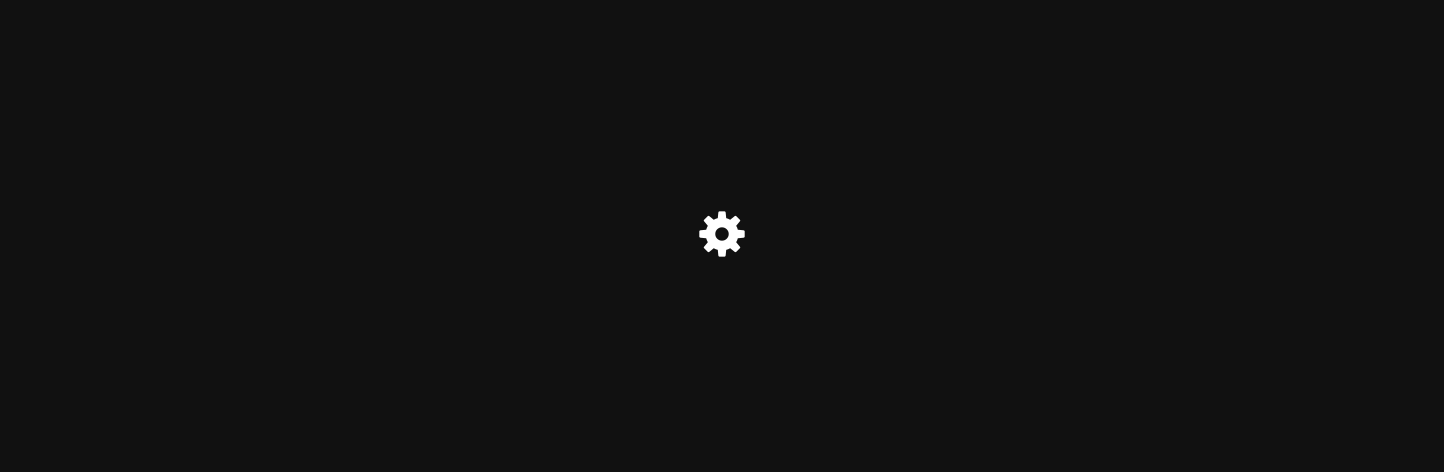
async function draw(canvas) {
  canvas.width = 1444
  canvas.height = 472
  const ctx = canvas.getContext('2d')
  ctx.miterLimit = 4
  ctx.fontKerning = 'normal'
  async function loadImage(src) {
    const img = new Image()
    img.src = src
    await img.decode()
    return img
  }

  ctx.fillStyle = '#111'
  ctx.fillRect(0, 0, 1444, 472)
  ctx.drawImage(await loadImage('image0.png'), 699, 211, 46, 46)
}

draw(document.querySelector('canvas'))
